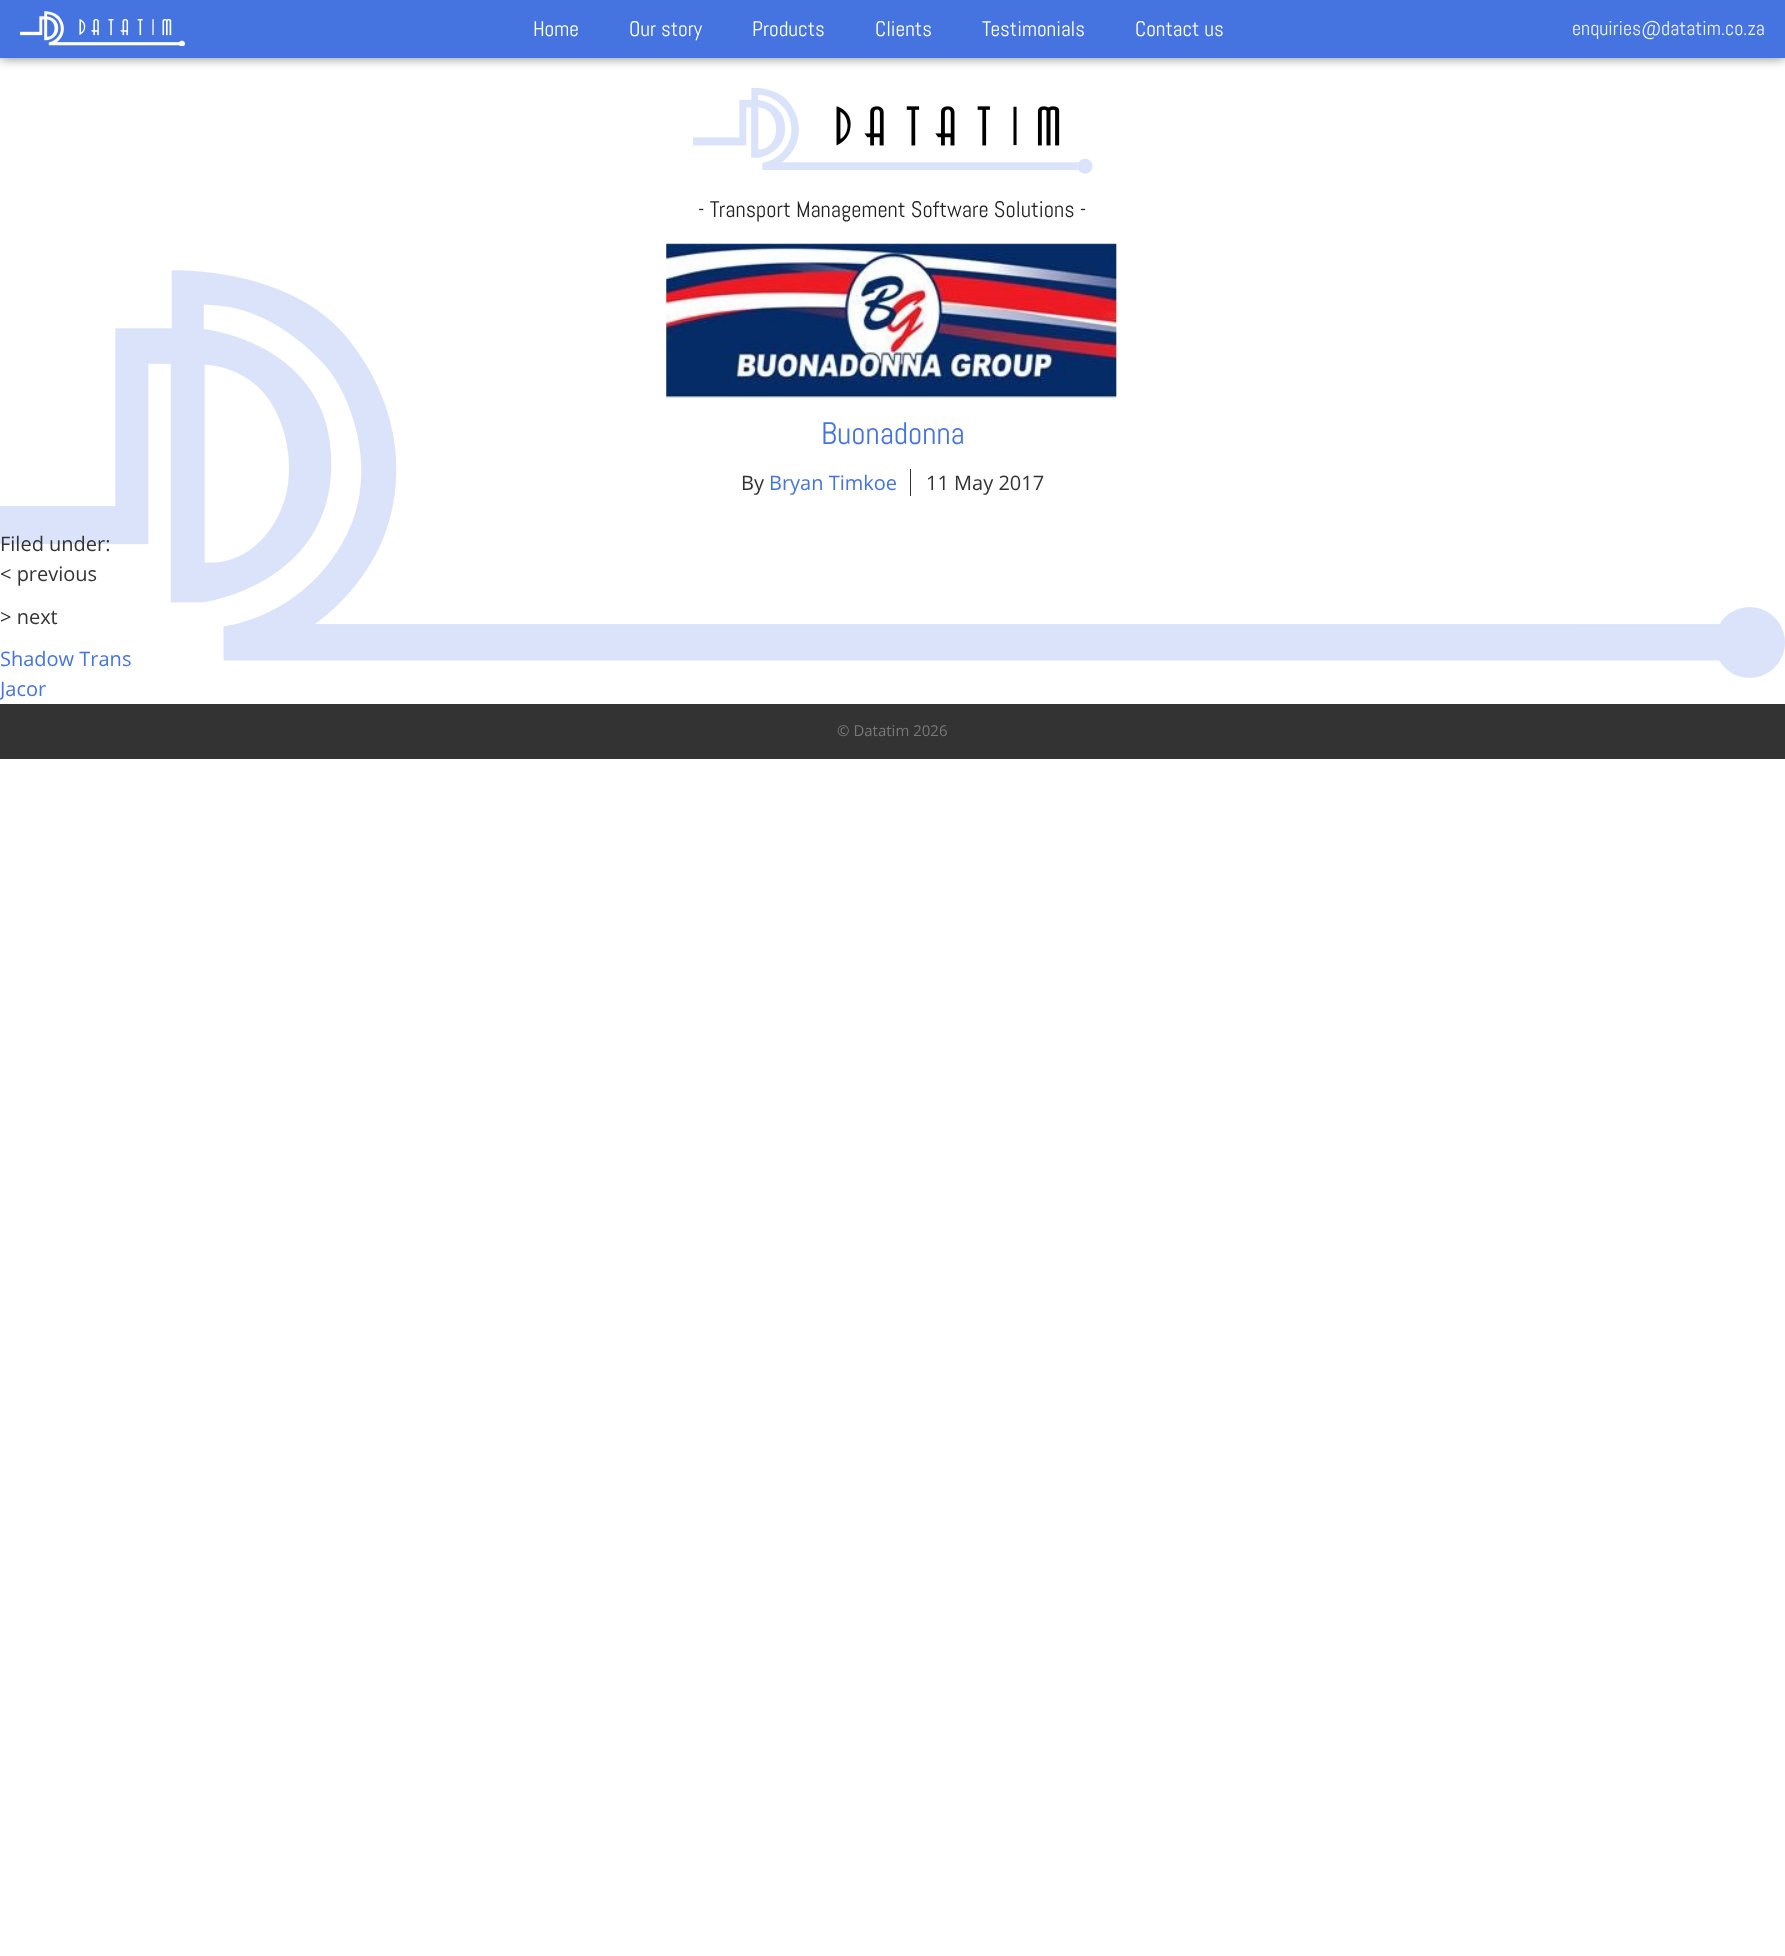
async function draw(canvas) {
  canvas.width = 1785
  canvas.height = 1956
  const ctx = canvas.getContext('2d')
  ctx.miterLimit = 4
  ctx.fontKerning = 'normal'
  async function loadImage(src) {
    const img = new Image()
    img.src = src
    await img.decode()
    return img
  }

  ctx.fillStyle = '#fff'
  ctx.fillRect(0, 0, 1785, 1956)
  ctx.drawImage(await loadImage('image0.png'), 0, 270, 1785, 408)
  ctx.fillStyle = '#00000080'
  ctx.filter = 'blur(6px)'
  ctx.beginPath()
  ctx.rect(0, 0, 1785, 58)
  ctx.fill()
  ctx.filter = 'none'
  ctx.fillStyle = '#4574e0'
  ctx.fillRect(0, 0, 1785, 58)
  ctx.drawImage(await loadImage('image1.png'), 20, 11, 165, 35)
  ctx.font = '21.25px Abel'
  ctx.fillStyle = '#fff'
  ctx.fillText('Home', 533, 36)
  ctx.fillText('Our story', 629, 36)
  ctx.fillText('Products', 752, 36)
  ctx.fillText('Clients', 875, 36)
  ctx.fillText('Testimonials', 982, 36)
  ctx.fillText('Contact us', 1135, 36)
  ctx.font = '20px Abel'
  ctx.fillStyle = '#ecf1fc'
  ctx.fillText('enquiries@datatim.co.za', 1572, 35)
  ctx.drawImage(await loadImage('image2.png'), 693, 88, 400, 86)
  ctx.font = '22.5px Abel'
  ctx.fillStyle = '#222'
  ctx.fillText('- Transport Management Software Solutions -', 698, 217)
  ctx.drawImage(await loadImage('image3.png'), 666, 243, 453, 156)
  ctx.font = '31.25px Abel'
  ctx.fillStyle = '#4574e0'
  ctx.fillText('Buonadonna', 821, 444)
  ctx.font = '20px Open Sans'
  ctx.fillStyle = '#333'
  ctx.fillText('By', 741, 490)
  ctx.fillStyle = '#4574e0'
  ctx.fillText('Bryan Timkoe', 769, 490)
  ctx.fillStyle = '#333'
  ctx.fillRect(910, 469, 1, 27)
  ctx.fillText('11 May 2017', 926, 490)
  ctx.fillText('Filed under:', 0, 551)
  ctx.fillText('< previous', 0, 581)
  ctx.fillText('> next', 0, 624)
  ctx.fillStyle = '#4574e0'
  ctx.fillText('Shadow Trans', 0, 666)
  ctx.fillText('Jacor', 0, 696)
  ctx.fillStyle = '#333'
  ctx.fillRect(0, 704, 1785, 55)
  ctx.font = '15px Open Sans'
  ctx.fillStyle = '#787878'
  ctx.fillText('© Datatim 2026', 837, 736)
}

draw(document.querySelector('canvas'))
